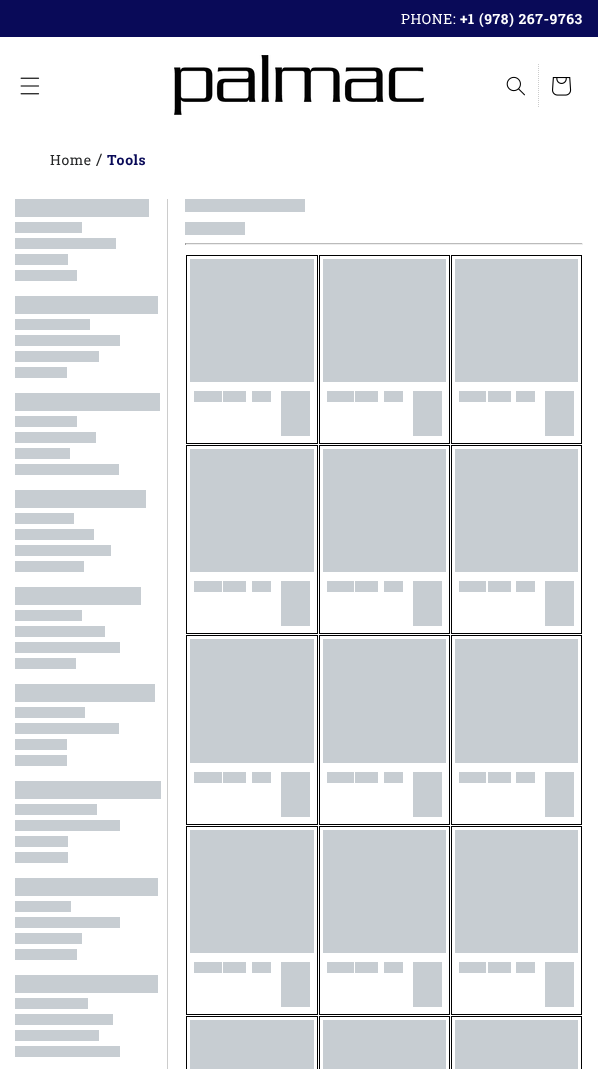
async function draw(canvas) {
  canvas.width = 598
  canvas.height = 1069
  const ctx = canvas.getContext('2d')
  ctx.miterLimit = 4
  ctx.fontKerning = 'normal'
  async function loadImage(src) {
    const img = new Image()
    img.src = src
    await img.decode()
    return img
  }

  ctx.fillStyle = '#fff'
  ctx.fillRect(0, 0, 598, 1069)
  ctx.fillStyle = '#090a58'
  ctx.fillRect(0, 0, 598, 37)
  ctx.letterSpacing = '0.6px'
  ctx.font = '14px Roboto Slab'
  ctx.fillStyle = '#fff'
  ctx.fillText('PHONE:', 401, 24)
  ctx.font = 'bold 14px Roboto Slab'
  ctx.fillText('+1 (978) 267-9763', 460, 24)
  ctx.drawImage(await loadImage('image0.png'), 20, 77, 20, 18)
  ctx.drawImage(await loadImage('image1.png'), 174, 55, 250, 60)
  ctx.drawImage(await loadImage('image2.png'), 506, 76, 19, 20)
  ctx.beginPath()
  ctx.moveTo(538.5, 64)
  ctx.lineTo(538.5, 108)
  ctx.strokeStyle = '#ccc'
  ctx.setLineDash([1, 1])
  ctx.stroke()
  ctx.drawImage(await loadImage('image3.png'), 552, 77, 20, 19)
  ctx.font = '14px Roboto Slab'
  ctx.fillStyle = '#242526'
  ctx.fillText('Home', 50, 165)
  ctx.font = '16px Roboto Slab'
  ctx.fillText('/', 96, 165)
  ctx.font = 'bold 14px Roboto Slab'
  ctx.fillStyle = '#090a58'
  ctx.fillText('Tools', 107, 165)
  ctx.fillStyle = '#ccc'
  ctx.fillRect(167, 199, 1, 870)
  ctx.fillStyle = '#c7cdd2'
  ctx.fillRect(15, 199, 134, 18)
  ctx.fillRect(15, 222, 67, 11)
  ctx.fillRect(15, 238, 101, 11)
  ctx.fillRect(15, 254, 53, 11)
  ctx.fillRect(15, 270, 62, 11)
  ctx.fillRect(15, 296, 143, 18)
  ctx.fillRect(15, 319, 75, 11)
  ctx.fillRect(15, 335, 105, 11)
  ctx.fillRect(15, 351, 84, 11)
  ctx.fillRect(15, 367, 52, 11)
  ctx.fillRect(15, 393, 145, 18)
  ctx.fillRect(15, 416, 62, 11)
  ctx.fillRect(15, 432, 81, 11)
  ctx.fillRect(15, 448, 55, 11)
  ctx.fillRect(15, 464, 104, 11)
  ctx.fillRect(15, 490, 131, 18)
  ctx.fillRect(15, 513, 59, 11)
  ctx.fillRect(15, 529, 79, 11)
  ctx.fillRect(15, 545, 96, 11)
  ctx.fillRect(15, 561, 69, 11)
  ctx.fillRect(15, 587, 126, 18)
  ctx.fillRect(15, 610, 67, 11)
  ctx.fillRect(15, 626, 90, 11)
  ctx.fillRect(15, 642, 105, 11)
  ctx.fillRect(15, 658, 61, 11)
  ctx.fillRect(15, 684, 140, 18)
  ctx.fillRect(15, 707, 70, 11)
  ctx.fillRect(15, 723, 104, 11)
  ctx.fillRect(15, 739, 52, 11)
  ctx.fillRect(15, 755, 52, 11)
  ctx.fillRect(15, 781, 146, 18)
  ctx.fillRect(15, 804, 82, 11)
  ctx.fillRect(15, 820, 105, 11)
  ctx.fillRect(15, 836, 53, 11)
  ctx.fillRect(15, 852, 53, 11)
  ctx.fillRect(15, 878, 143, 18)
  ctx.fillRect(15, 901, 56, 11)
  ctx.fillRect(15, 917, 105, 11)
  ctx.fillRect(15, 933, 67, 11)
  ctx.fillRect(15, 949, 62, 11)
  ctx.fillRect(15, 975, 143, 18)
  ctx.fillRect(15, 998, 73, 11)
  ctx.fillRect(15, 1014, 98, 11)
  ctx.fillRect(15, 1030, 84, 11)
  ctx.fillRect(15, 1046, 105, 11)
  ctx.fillRect(185, 199, 120, 13)
  ctx.fillRect(185, 222, 60, 13)
  ctx.fillStyle = '#bbb'
  ctx.fillRect(185, 243, 398, 1)
  ctx.fillStyle = '#eee'
  ctx.fillRect(582, 243, 1, 2)
  ctx.fillRect(185, 244, 398, 1)
  ctx.fillStyle = '#9f9f9f'
  ctx.fillRect(185, 243, 1, 2)
  ctx.strokeStyle = '#000'
  ctx.setLineDash([])
  ctx.strokeRect(186.5, 255.5, 131, 188)
  ctx.fillStyle = '#c7cdd2'
  ctx.fillRect(190, 259, 124, 123)
  ctx.fillRect(194, 391, 28, 11)
  ctx.fillRect(223, 391, 23, 11)
  ctx.fillRect(252, 391, 19, 11)
  ctx.fillRect(281, 391, 29, 45)
  ctx.strokeRect(319.5, 255.5, 130, 188)
  ctx.fillRect(323, 259, 123, 123)
  ctx.fillRect(327, 391, 27, 11)
  ctx.fillRect(355, 391, 23, 11)
  ctx.fillRect(384, 391, 19, 11)
  ctx.fillRect(413, 391, 29, 45)
  ctx.strokeRect(451.5, 255.5, 130, 188)
  ctx.fillRect(455, 259, 123, 123)
  ctx.fillRect(459, 391, 27, 11)
  ctx.fillRect(488, 391, 23, 11)
  ctx.fillRect(516, 391, 19, 11)
  ctx.fillRect(545, 391, 29, 45)
  ctx.strokeRect(186.5, 445.5, 131, 188)
  ctx.fillRect(190, 449, 124, 123)
  ctx.fillRect(194, 581, 28, 11)
  ctx.fillRect(223, 581, 23, 11)
  ctx.fillRect(252, 581, 19, 11)
  ctx.fillRect(281, 581, 29, 45)
  ctx.strokeRect(319.5, 445.5, 130, 188)
  ctx.fillRect(323, 449, 123, 123)
  ctx.fillRect(327, 581, 27, 11)
  ctx.fillRect(355, 581, 23, 11)
  ctx.fillRect(384, 581, 19, 11)
  ctx.fillRect(413, 581, 29, 45)
  ctx.strokeRect(451.5, 445.5, 130, 188)
  ctx.fillRect(455, 449, 123, 123)
  ctx.fillRect(459, 581, 27, 11)
  ctx.fillRect(488, 581, 23, 11)
  ctx.fillRect(516, 581, 19, 11)
  ctx.fillRect(545, 581, 29, 45)
  ctx.strokeRect(186.5, 635.5, 131, 189)
  ctx.fillRect(190, 639, 124, 124)
  ctx.fillRect(194, 772, 28, 11)
  ctx.fillRect(223, 772, 23, 11)
  ctx.fillRect(252, 772, 19, 11)
  ctx.fillRect(281, 772, 29, 45)
  ctx.strokeRect(319.5, 635.5, 130, 189)
  ctx.fillRect(323, 639, 123, 124)
  ctx.fillRect(327, 772, 27, 11)
  ctx.fillRect(355, 772, 23, 11)
  ctx.fillRect(384, 772, 19, 11)
  ctx.fillRect(413, 772, 29, 45)
  ctx.strokeRect(451.5, 635.5, 130, 189)
  ctx.fillRect(455, 639, 123, 124)
  ctx.fillRect(459, 772, 27, 11)
  ctx.fillRect(488, 772, 23, 11)
  ctx.fillRect(516, 772, 19, 11)
  ctx.fillRect(545, 772, 29, 45)
  ctx.strokeRect(186.5, 826.5, 131, 188)
  ctx.fillRect(190, 830, 124, 123)
  ctx.fillRect(194, 962, 28, 11)
  ctx.fillRect(223, 962, 23, 11)
  ctx.fillRect(252, 962, 19, 11)
  ctx.fillRect(281, 962, 29, 45)
  ctx.strokeRect(319.5, 826.5, 130, 188)
  ctx.fillRect(323, 830, 123, 123)
  ctx.fillRect(327, 962, 27, 11)
  ctx.fillRect(355, 962, 23, 11)
  ctx.fillRect(384, 962, 19, 11)
  ctx.fillRect(413, 962, 29, 45)
  ctx.strokeRect(451.5, 826.5, 130, 188)
  ctx.fillRect(455, 830, 123, 123)
  ctx.fillRect(459, 962, 27, 11)
  ctx.fillRect(488, 962, 23, 11)
  ctx.fillRect(516, 962, 19, 11)
  ctx.fillRect(545, 962, 29, 45)
  ctx.strokeRect(186.5, 1016.5, 131, 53)
  ctx.fillRect(190, 1020, 124, 49)
  ctx.strokeRect(319.5, 1016.5, 130, 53)
  ctx.fillRect(323, 1020, 123, 49)
  ctx.strokeRect(451.5, 1016.5, 130, 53)
  ctx.fillRect(455, 1020, 123, 49)
}

draw(document.querySelector('canvas'))
